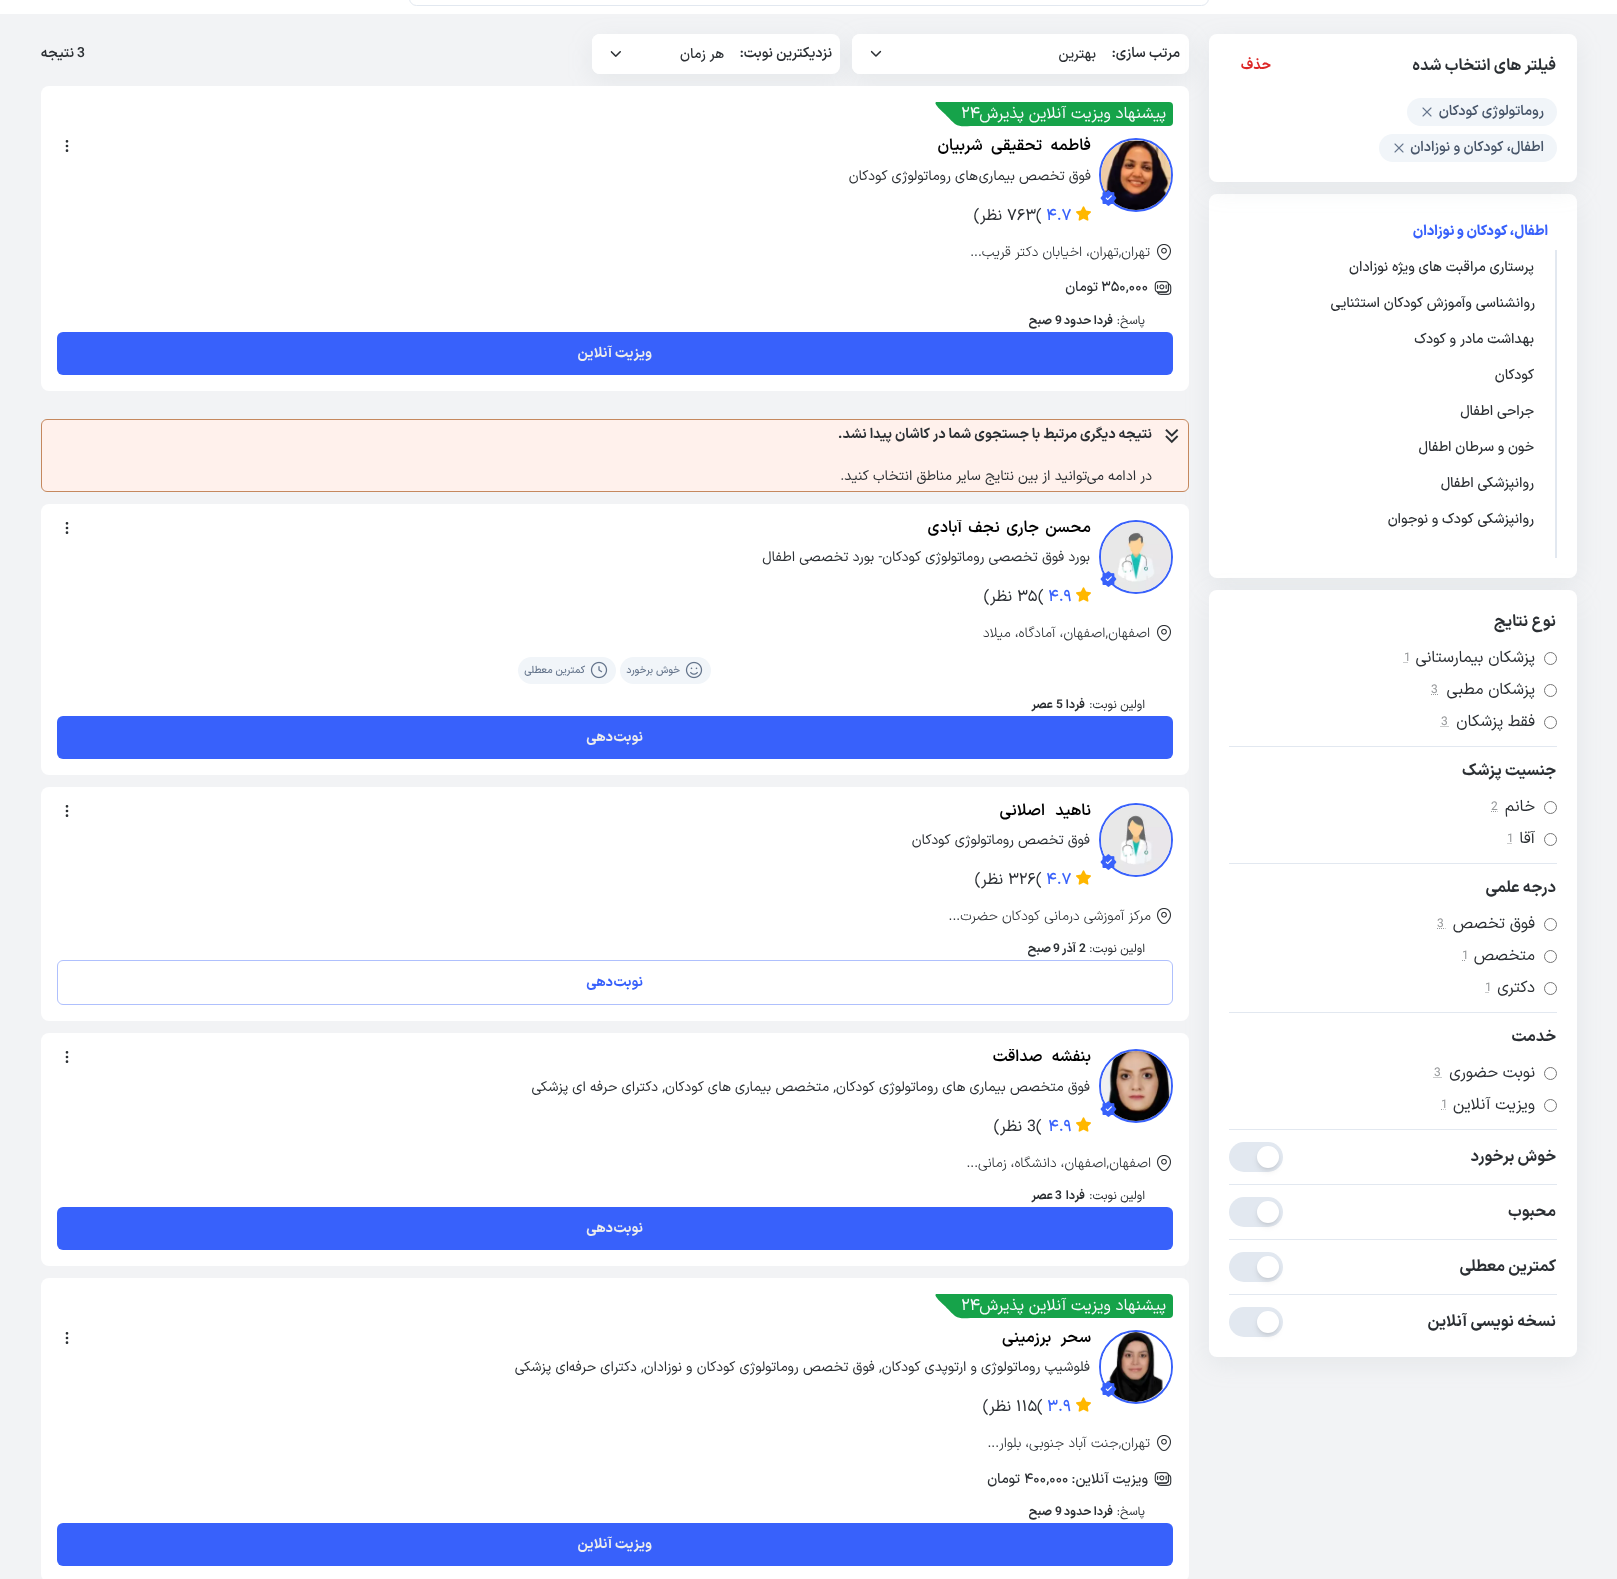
async function draw(canvas) {
  canvas.width = 1617
  canvas.height = 1579
  const ctx = canvas.getContext('2d')
  ctx.miterLimit = 4
  ctx.fontKerning = 'normal'
  async function loadImage(src) {
    const img = new Image()
    img.src = src
    await img.decode()
    return img
  }

  ctx.fillStyle = '#f2f3f5'
  ctx.fillRect(0, 0, 1617, 1579)
  ctx.fillStyle = '#fff'
  ctx.fillRect(0, 0, 1617, 14)
  ctx.fillStyle = '#98a1a924'
  ctx.filter = 'blur(12.5px)'
  ctx.beginPath()
  ctx.roundRect(1209, 201, 368, 384, 8)
  ctx.fill()
  ctx.filter = 'none'
  ctx.fillStyle = '#fff'
  ctx.beginPath()
  ctx.roundRect(1209, 194, 368, 384, 8)
  ctx.fill()
  ctx.fillStyle = '#98a1a924'
  ctx.filter = 'blur(12.5px)'
  ctx.beginPath()
  ctx.roundRect(852, 41, 337, 40, 8)
  ctx.fill()
  ctx.filter = 'none'
  ctx.fillStyle = '#fff'
  ctx.beginPath()
  ctx.roundRect(852, 34, 337, 40, 8)
  ctx.fill()
  ctx.fillStyle = '#98a1a924'
  ctx.filter = 'blur(12.5px)'
  ctx.beginPath()
  ctx.roundRect(1209, 41, 368, 148, 8)
  ctx.fill()
  ctx.filter = 'none'
  ctx.filter = 'blur(12.5px)'
  ctx.beginPath()
  ctx.roundRect(592, 41, 248, 40, 8)
  ctx.fill()
  ctx.filter = 'none'
  ctx.beginPath()
  ctx.roundRect(409.5, -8.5, 799, 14, 7.5)
  ctx.strokeStyle = '#e2e8f0'
  ctx.stroke()
  ctx.fillStyle = '#fff'
  ctx.beginPath()
  ctx.roundRect(1209, 34, 368, 148, 8)
  ctx.fill()
  ctx.direction = 'rtl'
  ctx.font = 'bold 16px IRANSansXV'
  ctx.fillStyle = '#2b2f33'
  ctx.fillText('فیلتر های انتخاب شده', 1556, 70)
  ctx.font = 'bold 14px IRANSansXV'
  ctx.fillStyle = '#dc2626'
  ctx.fillText('حذف', 1271, 69)
  ctx.fillStyle = '#f1f5f9'
  ctx.beginPath()
  ctx.roundRect(1407, 98, 150, 28, 14)
  ctx.fill()
  ctx.font = '600 14px IRANSansXV'
  ctx.fillStyle = '#475569'
  ctx.fillText('روماتولوژی کودکان', 1544, 115)
  ctx.drawImage(await loadImage('image0.png'), 1422, 107, 10, 10)
  ctx.fillStyle = '#f1f5f9'
  ctx.beginPath()
  ctx.roundRect(1379, 134, 178, 28, 14)
  ctx.fill()
  ctx.fillStyle = '#475569'
  ctx.fillText('اطفال، کودکان و نوزادان', 1544, 151)
  ctx.drawImage(await loadImage('image0.png'), 1394, 143, 10, 10)
  ctx.font = '800 14px IRANSansXV'
  ctx.fillStyle = '#3861fb'
  ctx.fillText('اطفال، کودکان و نوزادان', 1548, 235)
  ctx.fillStyle = '#e2e8f0'
  ctx.fillRect(1555, 250, 2, 308)
  ctx.font = '500 14px IRANSansXV'
  ctx.fillStyle = '#2b2f33'
  ctx.fillText('پرستاری مراقبت های ویژه نوزادان', 1534, 271)
  ctx.fillText('روانشناسی وآموزش کودکان استثنایی', 1535, 307)
  ctx.fillText('بهداشت مادر و کودک', 1534, 343)
  ctx.fillText('کودکان', 1534, 379)
  ctx.fillText('جراحی اطفال', 1534, 415)
  ctx.fillText('خون و سرطان اطفال', 1534, 451)
  ctx.fillText('روانپزشکی اطفال', 1534, 487)
  ctx.fillText('روانپزشکی کودک و نوجوان', 1534, 523)
  ctx.fillStyle = '#98a1a924'
  ctx.filter = 'blur(12.5px)'
  ctx.beginPath()
  ctx.roundRect(1209, 597, 368, 767, 8)
  ctx.fill()
  ctx.filter = 'none'
  ctx.fillStyle = '#fff'
  ctx.beginPath()
  ctx.roundRect(1209, 590, 368, 767, 8)
  ctx.fill()
  ctx.font = 'bold 16px IRANSansXV'
  ctx.fillStyle = '#2b2f33'
  ctx.fillText('نوع نتایج', 1556, 626)
  ctx.beginPath()
  ctx.arc(1550.5, 658.5, 6, 0, 2 * Math.PI)
  ctx.strokeStyle = '#767676'
  ctx.stroke()
  ctx.font = '16px IRANSansXV'
  ctx.fillText('پزشکان بیمارستانی', 1535, 662)
  ctx.direction = 'ltr'
  ctx.font = '12px IRANSansXV'
  ctx.fillStyle = '#959799'
  ctx.fillText('1', 1404, 661)
  ctx.beginPath()
  ctx.moveTo(1403.5, 662.5)
  ctx.lineTo(1404.5, 662.5)
  ctx.moveTo(1405.5, 662.5)
  ctx.lineTo(1406.5, 662.5)
  ctx.moveTo(1407.5, 662.5)
  ctx.lineTo(1408, 662.5)
  ctx.strokeStyle = '#959799'
  ctx.stroke()
  ctx.beginPath()
  ctx.arc(1550.5, 690.5, 6, 0, 2 * Math.PI)
  ctx.strokeStyle = '#767676'
  ctx.stroke()
  ctx.direction = 'rtl'
  ctx.font = '16px IRANSansXV'
  ctx.fillStyle = '#2b2f33'
  ctx.fillText('پزشکان مطبی', 1535, 694)
  ctx.direction = 'ltr'
  ctx.font = '12px IRANSansXV'
  ctx.fillStyle = '#959799'
  ctx.fillText('3', 1431, 693)
  ctx.beginPath()
  ctx.moveTo(1431, 694.5)
  ctx.lineTo(1439, 694.5)
  ctx.strokeStyle = '#959799'
  ctx.setLineDash([1, 1])
  ctx.stroke()
  ctx.beginPath()
  ctx.arc(1550.5, 722.5, 6, 0, 2 * Math.PI)
  ctx.strokeStyle = '#767676'
  ctx.setLineDash([])
  ctx.stroke()
  ctx.direction = 'rtl'
  ctx.font = '16px IRANSansXV'
  ctx.fillStyle = '#2b2f33'
  ctx.fillText('فقط پزشکان', 1535, 726)
  ctx.direction = 'ltr'
  ctx.font = '12px IRANSansXV'
  ctx.fillStyle = '#959799'
  ctx.fillText('3', 1441, 725)
  ctx.beginPath()
  ctx.moveTo(1440.5, 726.5)
  ctx.lineTo(1449, 726.5)
  ctx.strokeStyle = '#959799'
  ctx.setLineDash([1, 1])
  ctx.stroke()
  ctx.fillStyle = '#e2e8f0'
  ctx.fillRect(1229, 746, 328, 1)
  ctx.direction = 'rtl'
  ctx.font = 'bold 16px IRANSansXV'
  ctx.fillStyle = '#2b2f33'
  ctx.fillText('جنسیت پزشک', 1556, 775)
  ctx.beginPath()
  ctx.arc(1550.5, 807.5, 6, 0, 2 * Math.PI)
  ctx.strokeStyle = '#767676'
  ctx.setLineDash([])
  ctx.stroke()
  ctx.font = '16px IRANSansXV'
  ctx.fillText('خانم', 1535, 811)
  ctx.direction = 'ltr'
  ctx.font = '12px IRANSansXV'
  ctx.fillStyle = '#959799'
  ctx.fillText('2', 1491, 810)
  ctx.beginPath()
  ctx.moveTo(1491, 811.5)
  ctx.lineTo(1492, 811.5)
  ctx.moveTo(1493, 811.5)
  ctx.lineTo(1494, 811.5)
  ctx.moveTo(1495, 811.5)
  ctx.lineTo(1496, 811.5)
  ctx.moveTo(1497, 811.5)
  ctx.lineTo(1497.5, 811.5)
  ctx.strokeStyle = '#959799'
  ctx.stroke()
  ctx.beginPath()
  ctx.arc(1550.5, 839.5, 6, 0, 2 * Math.PI)
  ctx.strokeStyle = '#767676'
  ctx.stroke()
  ctx.direction = 'rtl'
  ctx.font = '16px IRANSansXV'
  ctx.fillStyle = '#2b2f33'
  ctx.fillText('آقا', 1535, 843)
  ctx.direction = 'ltr'
  ctx.font = '12px IRANSansXV'
  ctx.fillStyle = '#959799'
  ctx.fillText('1', 1507, 842)
  ctx.beginPath()
  ctx.moveTo(1507.5, 843.5)
  ctx.lineTo(1508.5, 843.5)
  ctx.moveTo(1509.5, 843.5)
  ctx.lineTo(1510.5, 843.5)
  ctx.moveTo(1511.5, 843.5)
  ctx.lineTo(1512, 843.5)
  ctx.strokeStyle = '#959799'
  ctx.stroke()
  ctx.fillStyle = '#e2e8f0'
  ctx.fillRect(1229, 863, 328, 1)
  ctx.direction = 'rtl'
  ctx.font = 'bold 16px IRANSansXV'
  ctx.fillStyle = '#2b2f33'
  ctx.fillText('درجه علمی', 1556, 892)
  ctx.beginPath()
  ctx.arc(1550.5, 924.5, 6, 0, 2 * Math.PI)
  ctx.strokeStyle = '#767676'
  ctx.stroke()
  ctx.font = '16px IRANSansXV'
  ctx.fillText('فوق تخصص', 1535, 928)
  ctx.direction = 'ltr'
  ctx.font = '12px IRANSansXV'
  ctx.fillStyle = '#959799'
  ctx.fillText('3', 1437, 927)
  ctx.beginPath()
  ctx.moveTo(1437, 928.5)
  ctx.lineTo(1445.5, 928.5)
  ctx.strokeStyle = '#959799'
  ctx.setLineDash([1, 1])
  ctx.stroke()
  ctx.beginPath()
  ctx.arc(1550.5, 956.5, 6, 0, 2 * Math.PI)
  ctx.strokeStyle = '#767676'
  ctx.setLineDash([])
  ctx.stroke()
  ctx.direction = 'rtl'
  ctx.font = '16px IRANSansXV'
  ctx.fillStyle = '#2b2f33'
  ctx.fillText('متخصص', 1535, 960)
  ctx.direction = 'ltr'
  ctx.font = '12px IRANSansXV'
  ctx.fillStyle = '#959799'
  ctx.fillText('1', 1462, 959)
  ctx.beginPath()
  ctx.moveTo(1462, 960.5)
  ctx.lineTo(1463, 960.5)
  ctx.moveTo(1464, 960.5)
  ctx.lineTo(1465, 960.5)
  ctx.moveTo(1466, 960.5)
  ctx.lineTo(1466, 960.5)
  ctx.strokeStyle = '#959799'
  ctx.stroke()
  ctx.beginPath()
  ctx.arc(1550.5, 988.5, 6, 0, 2 * Math.PI)
  ctx.strokeStyle = '#767676'
  ctx.stroke()
  ctx.direction = 'rtl'
  ctx.font = '16px IRANSansXV'
  ctx.fillStyle = '#2b2f33'
  ctx.fillText('دکتری', 1535, 992)
  ctx.direction = 'ltr'
  ctx.font = '12px IRANSansXV'
  ctx.fillStyle = '#959799'
  ctx.fillText('1', 1485, 991)
  ctx.beginPath()
  ctx.moveTo(1485.5, 992.5)
  ctx.lineTo(1486.5, 992.5)
  ctx.moveTo(1487.5, 992.5)
  ctx.lineTo(1488.5, 992.5)
  ctx.moveTo(1489.5, 992.5)
  ctx.lineTo(1489.5, 992.5)
  ctx.strokeStyle = '#959799'
  ctx.stroke()
  ctx.fillStyle = '#e2e8f0'
  ctx.fillRect(1229, 1012, 328, 1)
  ctx.direction = 'rtl'
  ctx.font = 'bold 16px IRANSansXV'
  ctx.fillStyle = '#2b2f33'
  ctx.fillText('خدمت', 1556, 1041)
  ctx.beginPath()
  ctx.arc(1550.5, 1073.5, 6, 0, 2 * Math.PI)
  ctx.strokeStyle = '#767676'
  ctx.stroke()
  ctx.font = '16px IRANSansXV'
  ctx.fillText('نوبت حضوری', 1535, 1077)
  ctx.direction = 'ltr'
  ctx.font = '12px IRANSansXV'
  ctx.fillStyle = '#959799'
  ctx.fillText('3', 1434, 1076)
  ctx.beginPath()
  ctx.moveTo(1433.5, 1077.5)
  ctx.lineTo(1442, 1077.5)
  ctx.strokeStyle = '#959799'
  ctx.setLineDash([1, 1])
  ctx.stroke()
  ctx.beginPath()
  ctx.arc(1550.5, 1105.5, 6, 0, 2 * Math.PI)
  ctx.strokeStyle = '#767676'
  ctx.setLineDash([])
  ctx.stroke()
  ctx.direction = 'rtl'
  ctx.font = '16px IRANSansXV'
  ctx.fillStyle = '#2b2f33'
  ctx.fillText('ویزیت آنلاین', 1535, 1109)
  ctx.direction = 'ltr'
  ctx.font = '12px IRANSansXV'
  ctx.fillStyle = '#959799'
  ctx.fillText('1', 1441, 1108)
  ctx.beginPath()
  ctx.moveTo(1441, 1109.5)
  ctx.lineTo(1442, 1109.5)
  ctx.moveTo(1443.5, 1109.5)
  ctx.lineTo(1444, 1109.5)
  ctx.moveTo(1445, 1109.5)
  ctx.lineTo(1445.5, 1109.5)
  ctx.strokeStyle = '#959799'
  ctx.stroke()
  ctx.fillStyle = '#e2e8f0'
  ctx.fillRect(1229, 1129, 328, 1)
  ctx.direction = 'rtl'
  ctx.font = 'bold 16px IRANSansXV'
  ctx.fillStyle = '#2b2f33'
  ctx.fillText('خوش برخورد', 1556, 1161)
  ctx.fillStyle = '#e2e8f0'
  ctx.beginPath()
  ctx.roundRect(1229, 1142, 54, 30, 15)
  ctx.fill()
  ctx.fillStyle = '#0000001a'
  ctx.filter = 'blur(2px)'
  ctx.beginPath()
  ctx.roundRect(1259, 1150, 18, 18, 9)
  ctx.fill()
  ctx.filter = 'none'
  ctx.filter = 'blur(3px)'
  ctx.beginPath()
  ctx.roundRect(1258, 1151, 20, 20, 10)
  ctx.fill()
  ctx.filter = 'none'
  ctx.fillStyle = '#fff'
  ctx.beginPath()
  ctx.arc(1268, 1157, 11, 0, 2 * Math.PI)
  ctx.fill()
  ctx.fillStyle = '#e2e8f0'
  ctx.fillRect(1229, 1184, 328, 1)
  ctx.fillStyle = '#2b2f33'
  ctx.fillText('محبوب', 1556, 1216)
  ctx.fillStyle = '#e2e8f0'
  ctx.beginPath()
  ctx.roundRect(1229, 1197, 54, 30, 15)
  ctx.fill()
  ctx.fillStyle = '#0000001a'
  ctx.filter = 'blur(2px)'
  ctx.beginPath()
  ctx.roundRect(1259, 1205, 18, 18, 9)
  ctx.fill()
  ctx.filter = 'none'
  ctx.filter = 'blur(3px)'
  ctx.beginPath()
  ctx.roundRect(1258, 1206, 20, 20, 10)
  ctx.fill()
  ctx.filter = 'none'
  ctx.fillStyle = '#fff'
  ctx.beginPath()
  ctx.arc(1268, 1212, 11, 0, 2 * Math.PI)
  ctx.fill()
  ctx.fillStyle = '#e2e8f0'
  ctx.fillRect(1229, 1239, 328, 1)
  ctx.fillStyle = '#2b2f33'
  ctx.fillText('کمترین معطلی', 1556, 1271)
  ctx.fillStyle = '#e2e8f0'
  ctx.beginPath()
  ctx.roundRect(1229, 1252, 54, 30, 15)
  ctx.fill()
  ctx.fillStyle = '#0000001a'
  ctx.filter = 'blur(2px)'
  ctx.beginPath()
  ctx.roundRect(1259, 1260, 18, 18, 9)
  ctx.fill()
  ctx.filter = 'none'
  ctx.filter = 'blur(3px)'
  ctx.beginPath()
  ctx.roundRect(1258, 1261, 20, 20, 10)
  ctx.fill()
  ctx.filter = 'none'
  ctx.fillStyle = '#fff'
  ctx.beginPath()
  ctx.arc(1268, 1267, 11, 0, 2 * Math.PI)
  ctx.fill()
  ctx.fillStyle = '#e2e8f0'
  ctx.fillRect(1229, 1294, 328, 1)
  ctx.fillStyle = '#2b2f33'
  ctx.fillText('نسخه نویسی آنلاین', 1556, 1326)
  ctx.fillStyle = '#e2e8f0'
  ctx.beginPath()
  ctx.roundRect(1229, 1307, 54, 30, 15)
  ctx.fill()
  ctx.fillStyle = '#0000001a'
  ctx.filter = 'blur(2px)'
  ctx.beginPath()
  ctx.roundRect(1259, 1315, 18, 18, 9)
  ctx.fill()
  ctx.filter = 'none'
  ctx.filter = 'blur(3px)'
  ctx.beginPath()
  ctx.roundRect(1258, 1316, 20, 20, 10)
  ctx.fill()
  ctx.filter = 'none'
  ctx.fillStyle = '#fff'
  ctx.beginPath()
  ctx.arc(1268, 1322, 11, 0, 2 * Math.PI)
  ctx.fill()
  ctx.font = '600 14px IRANSansXV'
  ctx.fillStyle = '#2b2f33'
  ctx.fillText('مرتب سازی:', 1180, 57)
  ctx.fillStyle = '#fff'
  ctx.beginPath()
  ctx.roundRect(852, 34, 256, 40, [8, 0, 0, 8])
  ctx.fill()
  ctx.font = '500 14px IRANSansXV'
  ctx.fillStyle = '#2b2f33'
  ctx.fillText('بهترین', 1096, 58)
  ctx.drawImage(await loadImage('image1.png'), 870, 50, 12, 7)
  ctx.fillStyle = '#fff'
  ctx.beginPath()
  ctx.roundRect(592, 34, 248, 40, 8)
  ctx.fill()
  ctx.font = '600 14px IRANSansXV'
  ctx.fillStyle = '#2b2f33'
  ctx.fillText('نزدیکترین نوبت:', 832, 57)
  ctx.fillStyle = '#fff'
  ctx.beginPath()
  ctx.roundRect(592, 34, 144, 40, [8, 0, 0, 8])
  ctx.fill()
  ctx.font = '500 14px IRANSansXV'
  ctx.fillStyle = '#2b2f33'
  ctx.fillText('هر زمان', 724, 58)
  ctx.drawImage(await loadImage('image2.png'), 610, 51, 11, 6)
  ctx.direction = 'ltr'
  ctx.font = '600 14px IRANSansXV'
  ctx.fillText('3', 77, 57)
  ctx.direction = 'rtl'
  ctx.fillText('نتیجه', 74, 57)
  ctx.fillStyle = '#fff'
  ctx.beginPath()
  ctx.roundRect(41, 86, 1148, 305, 8)
  ctx.fill()
  ctx.fillStyle = '#16a34a'
  ctx.beginPath()
  ctx.moveTo(937, 102)
  ctx.lineTo(968, 102)
  ctx.bezierCurveTo(974, 104, 979, 112, 983, 117)
  ctx.bezierCurveTo(993, 127, 993, 126, 979, 126)
  ctx.bezierCurveTo(956, 126, 959, 129, 945, 114)
  ctx.bezierCurveTo(944, 113, 931, 102, 937, 102)
  ctx.closePath()
  ctx.fill()
  ctx.beginPath()
  ctx.roundRect(961, 102, 212, 24, [0, 4, 4, 0])
  ctx.fill()
  ctx.font = '16px IRANSansXV'
  ctx.fillStyle = '#f8fafc'
  ctx.fillText('پیشنهاد ویزیت آنلاین پذیرش', 1166, 118)
  ctx.direction = 'ltr'
  ctx.font = '16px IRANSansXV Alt'
  ctx.fillText('24', 961, 118)
  ctx.beginPath()
  ctx.arc(1136, 175, 36, 0, 2 * Math.PI)
  ctx.strokeStyle = '#3861fb'
  ctx.lineWidth = 2
  ctx.stroke()
  ctx.drawImage(await loadImage('image3.png'), 1101, 140, 70, 70)
  ctx.drawImage(await loadImage('image4.png'), 1100, 190, 17, 16)
  ctx.letterSpacing = '-0.5px'
  ctx.wordSpacing = '5px'
  ctx.direction = 'rtl'
  ctx.font = '600 16px IRANSansXV'
  ctx.fillStyle = '#000'
  ctx.fillText('فاطمه تحقیقی شربیان', 1091, 150)
  ctx.beginPath()
  ctx.arc(67, 146, 0.7, 0, 2 * Math.PI)
  ctx.strokeStyle = '#2b2f33'
  ctx.lineWidth = 1.3
  ctx.stroke()
  ctx.beginPath()
  ctx.arc(67, 141.3, 0.7, 0, 2 * Math.PI)
  ctx.stroke()
  ctx.beginPath()
  ctx.arc(67, 150.7, 0.7, 0, 2 * Math.PI)
  ctx.stroke()
  ctx.letterSpacing = '0px'
  ctx.wordSpacing = '0px'
  ctx.font = '14px IRANSansXV'
  ctx.fillStyle = '#2b2f33'
  ctx.fillText('فوق تخصص بیماری', 1091, 180)
  ctx.fillText('‌های روماتولوژی کودکان', 978, 180)
  ctx.drawImage(await loadImage('image5.png'), 1076, 206, 15, 15)
  ctx.direction = 'ltr'
  ctx.font = '500 16px IRANSansXV Alt'
  ctx.fillStyle = '#3861fb'
  ctx.fillText('4.7', 1046, 220)
  ctx.font = '16px IRANSansXV'
  ctx.fillStyle = '#2b2f33'
  ctx.fillText('(', 1036, 220)
  ctx.font = '16px IRANSansXV Alt'
  ctx.fillText('763', 1007, 220)
  ctx.direction = 'rtl'
  ctx.font = '16px IRANSansXV'
  ctx.fillText('نظر)', 1002, 220)
  ctx.drawImage(await loadImage('image6.png'), 1157, 244, 14, 16)
  ctx.font = '300 14px IRANSansXV'
  ctx.fillText('تهران,تهران، اخیابان دکتر قریب...', 1150, 256)
  ctx.drawImage(await loadImage('image7.png'), 1154, 281, 18, 14)
  ctx.direction = 'ltr'
  ctx.font = '500 14px IRANSansXV Alt'
  ctx.fillText('350,000', 1101, 291)
  ctx.direction = 'rtl'
  ctx.font = '500 14px IRANSansXV'
  ctx.fillText('تومان', 1098, 291)
  ctx.font = '12px IRANSansXV'
  ctx.fillText('پاسخ:', 1145, 324)
  ctx.font = 'bold 12px IRANSansXV'
  ctx.fillText('فردا حدود', 1113, 324)
  ctx.direction = 'ltr'
  ctx.fillText('9', 1055, 324)
  ctx.direction = 'rtl'
  ctx.fillText('صبح', 1052, 324)
  ctx.fillStyle = '#3861fb'
  ctx.beginPath()
  ctx.roundRect(57, 332, 1116, 43, 6)
  ctx.fill()
  ctx.font = 'bold 14px IRANSansXV'
  ctx.fillStyle = '#ededec'
  ctx.fillText('ویزیت آنلاین', 652, 357)
  ctx.fillStyle = '#fff1ec'
  ctx.beginPath()
  ctx.roundRect(41.5, 419.5, 1147, 72, 5.5)
  ctx.fill()
  ctx.strokeStyle = '#c5885e'
  ctx.lineWidth = 1
  ctx.stroke()
  ctx.drawImage(await loadImage('image8.png'), 1165, 429, 14, 15)
  ctx.fillStyle = '#2b2f33'
  ctx.fillText('نتیجه دیگری مرتبط با جستجوی شما در', 1152, 438)
  ctx.fillText('کاشان', 930, 438)
  ctx.fillText('پیدا نشد.', 892, 438)
  ctx.font = '14px IRANSansXV'
  ctx.fillText('در ادامه می', 1152, 480)
  ctx.fillText('‌توانید از بین نتایج سایر مناطق انتخاب کنید.', 1087, 480)
  ctx.fillStyle = '#fff'
  ctx.beginPath()
  ctx.roundRect(41, 504, 1148, 271, 8)
  ctx.fill()
  ctx.beginPath()
  ctx.arc(1136, 557, 36, 0, 2 * Math.PI)
  ctx.strokeStyle = '#3861fb'
  ctx.lineWidth = 2
  ctx.stroke()
  ctx.drawImage(await loadImage('image9.png'), 1101, 522, 70, 70)
  ctx.drawImage(await loadImage('image10.png'), 1100, 571, 17, 16)
  ctx.save()
  ctx.beginPath()
  ctx.rect(77, 520, 1014, 17)
  ctx.clip()
  ctx.letterSpacing = '-0.5px'
  ctx.wordSpacing = '3px'
  ctx.font = '600 16px IRANSansXV'
  ctx.fillStyle = '#000'
  ctx.fillText('محسن جاری نجف آبادی', 1091, 532)
  ctx.restore()
  ctx.beginPath()
  ctx.arc(67, 528, 0.7, 0, 2 * Math.PI)
  ctx.strokeStyle = '#2b2f33'
  ctx.lineWidth = 1.3
  ctx.stroke()
  ctx.beginPath()
  ctx.arc(67, 523.3, 0.7, 0, 2 * Math.PI)
  ctx.stroke()
  ctx.beginPath()
  ctx.arc(67, 532.7, 0.7, 0, 2 * Math.PI)
  ctx.stroke()
  ctx.fillStyle = '#2b2f33'
  ctx.fillText('بورد فوق تخصصی روماتولوژی کودکان- بورد تخصصی اطفال', 1090, 561)
  ctx.drawImage(await loadImage('image5.png'), 1076, 587, 15, 15)
  ctx.direction = 'ltr'
  ctx.font = '500 16px IRANSansXV Alt'
  ctx.fillStyle = '#3861fb'
  ctx.fillText('4.9', 1048, 601)
  ctx.font = '16px IRANSansXV'
  ctx.fillStyle = '#2b2f33'
  ctx.fillText('(', 1038, 601)
  ctx.font = '16px IRANSansXV Alt'
  ctx.fillText('35', 1017, 601)
  ctx.direction = 'rtl'
  ctx.font = '16px IRANSansXV'
  ctx.fillText('نظر)', 1012, 601)
  ctx.drawImage(await loadImage('image6.png'), 1157, 625, 14, 16)
  ctx.font = '300 14px IRANSansXV'
  ctx.fillText('اصفهان,اصفهان، آمادگاه، میلاد', 1150, 637)
  ctx.fillStyle = '#f1f5f9'
  ctx.beginPath()
  ctx.roundRect(620, 657, 91, 27, 13.5)
  ctx.fill()
  ctx.drawImage(await loadImage('image11.png'), 685, 661, 18, 18)
  ctx.font = '500 10.25px IRANSansXV'
  ctx.fillStyle = '#64748b'
  ctx.fillText('خوش برخورد', 680, 673)
  ctx.fillStyle = '#f1f5f9'
  ctx.beginPath()
  ctx.roundRect(518, 657, 98, 27, 13.5)
  ctx.fill()
  ctx.drawImage(await loadImage('image12.png'), 590, 661, 18, 18)
  ctx.fillStyle = '#64748b'
  ctx.fillText('کمترین معطلی', 585, 673)
  ctx.font = '12px IRANSansXV'
  ctx.fillStyle = '#2b2f33'
  ctx.fillText('اولین نوبت:', 1145, 708)
  ctx.font = 'bold 12px IRANSansXV'
  ctx.fillText('فردا', 1085, 708)
  ctx.direction = 'ltr'
  ctx.fillText('5', 1056, 708)
  ctx.direction = 'rtl'
  ctx.fillText('عصر', 1053, 708)
  ctx.fillStyle = '#3861fb'
  ctx.beginPath()
  ctx.roundRect(57, 716, 1116, 43, 6)
  ctx.fill()
  ctx.font = 'bold 14px IRANSansXV'
  ctx.fillStyle = '#ededec'
  ctx.fillText('نوبت', 643, 741)
  ctx.fillText('‌دهی', 613, 741)
  ctx.fillStyle = '#fff'
  ctx.beginPath()
  ctx.roundRect(41, 787, 1148, 234, 8)
  ctx.fill()
  ctx.beginPath()
  ctx.arc(1136, 840, 36, 0, 2 * Math.PI)
  ctx.strokeStyle = '#3861fb'
  ctx.lineWidth = 2
  ctx.stroke()
  ctx.drawImage(await loadImage('image13.png'), 1101, 805, 70, 70)
  ctx.drawImage(await loadImage('image14.png'), 1100, 854, 17, 16)
  ctx.letterSpacing = '-0.5px'
  ctx.wordSpacing = '7px'
  ctx.font = '600 16px IRANSansXV'
  ctx.fillStyle = '#000'
  ctx.fillText('ناهید اصلانی', 1091, 815)
  ctx.beginPath()
  ctx.arc(67, 811, 0.7, 0, 2 * Math.PI)
  ctx.strokeStyle = '#2b2f33'
  ctx.lineWidth = 1.3
  ctx.stroke()
  ctx.beginPath()
  ctx.arc(67, 806.3, 0.7, 0, 2 * Math.PI)
  ctx.stroke()
  ctx.beginPath()
  ctx.arc(67, 815.7, 0.7, 0, 2 * Math.PI)
  ctx.stroke()
  ctx.letterSpacing = '0px'
  ctx.wordSpacing = '0px'
  ctx.font = '14px IRANSansXV'
  ctx.fillStyle = '#2b2f33'
  ctx.fillText('فوق تخصص روماتولوژی کودکان', 1090, 844)
  ctx.drawImage(await loadImage('image5.png'), 1076, 870, 15, 15)
  ctx.direction = 'ltr'
  ctx.font = '500 16px IRANSansXV Alt'
  ctx.fillStyle = '#3861fb'
  ctx.fillText('4.7', 1046, 884)
  ctx.font = '16px IRANSansXV'
  ctx.fillStyle = '#2b2f33'
  ctx.fillText('(', 1036, 884)
  ctx.font = '16px IRANSansXV Alt'
  ctx.fillText('326', 1008, 884)
  ctx.direction = 'rtl'
  ctx.font = '16px IRANSansXV'
  ctx.fillText('نظر)', 1003, 884)
  ctx.drawImage(await loadImage('image6.png'), 1157, 908, 14, 16)
  ctx.font = '300 14px IRANSansXV'
  ctx.fillText('مرکز آموزشی درمانی کودکان حضرت...', 1151, 920)
  ctx.font = '12px IRANSansXV'
  ctx.fillText('اولین نوبت:', 1145, 952)
  ctx.direction = 'ltr'
  ctx.font = 'bold 12px IRANSansXV'
  ctx.fillText('2', 1079, 952)
  ctx.direction = 'rtl'
  ctx.fillText('آذر', 1076, 952)
  ctx.direction = 'ltr'
  ctx.fillText('9', 1053, 952)
  ctx.direction = 'rtl'
  ctx.fillText('صبح', 1051, 952)
  ctx.beginPath()
  ctx.roundRect(57.5, 960.5, 1115, 44, 5.5)
  ctx.strokeStyle = '#afc0fd'
  ctx.lineWidth = 1
  ctx.stroke()
  ctx.font = 'bold 14px IRANSansXV'
  ctx.fillStyle = '#3861fb'
  ctx.fillText('نوبت', 643, 986)
  ctx.fillText('‌دهی', 613, 986)
  ctx.fillStyle = '#fff'
  ctx.beginPath()
  ctx.roundRect(41, 1033, 1148, 233, 8)
  ctx.fill()
  ctx.beginPath()
  ctx.arc(1136, 1086, 36, 0, 2 * Math.PI)
  ctx.strokeStyle = '#3861fb'
  ctx.lineWidth = 2
  ctx.stroke()
  ctx.drawImage(await loadImage('image15.png'), 1101, 1051, 70, 70)
  ctx.drawImage(await loadImage('image16.png'), 1100, 1101, 17, 16)
  ctx.save()
  ctx.beginPath()
  ctx.rect(77, 1049, 1014, 18)
  ctx.clip()
  ctx.letterSpacing = '-0.5px'
  ctx.wordSpacing = '6px'
  ctx.font = '600 16px IRANSansXV'
  ctx.fillStyle = '#000'
  ctx.fillText('بنفشه صداقت', 1091, 1061)
  ctx.restore()
  ctx.beginPath()
  ctx.arc(67, 1057, 0.7, 0, 2 * Math.PI)
  ctx.strokeStyle = '#2b2f33'
  ctx.lineWidth = 1.3
  ctx.stroke()
  ctx.beginPath()
  ctx.arc(67, 1052.3, 0.7, 0, 2 * Math.PI)
  ctx.stroke()
  ctx.beginPath()
  ctx.arc(67, 1061.7, 0.7, 0, 2 * Math.PI)
  ctx.stroke()
  ctx.font = '14px IRANSansXV'
  ctx.fillStyle = '#2b2f33'
  ctx.fillText('فوق متخصص بیماری های روماتولوژی کودکان, متخصص بیماری های کودکان, دکترای حرفه ای پزشکی', 1090, 1091)
  ctx.drawImage(await loadImage('image5.png'), 1076, 1117, 15, 15)
  ctx.direction = 'ltr'
  ctx.font = '500 16px IRANSansXV Alt'
  ctx.fillStyle = '#3861fb'
  ctx.fillText('4.9', 1048, 1131)
  ctx.font = '16px IRANSansXV'
  ctx.fillStyle = '#2b2f33'
  ctx.fillText('3(', 1027, 1131)
  ctx.direction = 'rtl'
  ctx.fillText('نظر)', 1022, 1131)
  ctx.drawImage(await loadImage('image6.png'), 1157, 1155, 14, 16)
  ctx.font = '300 14px IRANSansXV'
  ctx.fillText('اصفهان,اصفهان، دانشگاه، زمانی...', 1151, 1167)
  ctx.font = '12px IRANSansXV'
  ctx.fillText('اولین نوبت:', 1145, 1199)
  ctx.font = 'bold 12px IRANSansXV'
  ctx.fillText('فردا', 1085, 1199)
  ctx.direction = 'ltr'
  ctx.fillText('3', 1055, 1199)
  ctx.direction = 'rtl'
  ctx.fillText('عصر', 1053, 1199)
  ctx.fillStyle = '#3861fb'
  ctx.beginPath()
  ctx.roundRect(57, 1207, 1116, 43, 6)
  ctx.fill()
  ctx.font = 'bold 14px IRANSansXV'
  ctx.fillStyle = '#ededec'
  ctx.fillText('نوبت', 643, 1232)
  ctx.fillText('‌دهی', 613, 1232)
  ctx.fillStyle = '#fff'
  ctx.beginPath()
  ctx.roundRect(41, 1278, 1148, 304, 8)
  ctx.fill()
  ctx.fillStyle = '#16a34a'
  ctx.beginPath()
  ctx.moveTo(937, 1294)
  ctx.lineTo(968, 1294)
  ctx.bezierCurveTo(974, 1296, 979, 1304, 983, 1308)
  ctx.bezierCurveTo(993, 1319, 993, 1318, 979, 1318)
  ctx.bezierCurveTo(956, 1318, 959, 1321, 945, 1306)
  ctx.bezierCurveTo(944, 1305, 931, 1294, 937, 1294)
  ctx.closePath()
  ctx.fill()
  ctx.beginPath()
  ctx.roundRect(961, 1294, 212, 24, [0, 4, 4, 0])
  ctx.fill()
  ctx.font = '16px IRANSansXV'
  ctx.fillStyle = '#f8fafc'
  ctx.fillText('پیشنهاد ویزیت آنلاین پذیرش', 1166, 1310)
  ctx.direction = 'ltr'
  ctx.font = '16px IRANSansXV Alt'
  ctx.fillText('24', 961, 1310)
  ctx.beginPath()
  ctx.arc(1136, 1367, 36, 0, 2 * Math.PI)
  ctx.strokeStyle = '#3861fb'
  ctx.lineWidth = 2
  ctx.stroke()
  ctx.drawImage(await loadImage('image17.png'), 1101, 1332, 70, 70)
  ctx.drawImage(await loadImage('image18.png'), 1100, 1381, 17, 16)
  ctx.letterSpacing = '-0.5px'
  ctx.wordSpacing = '6px'
  ctx.direction = 'rtl'
  ctx.font = '600 16px IRANSansXV'
  ctx.fillStyle = '#000'
  ctx.fillText('سحر برزمینی', 1091, 1342)
  ctx.beginPath()
  ctx.arc(67, 1338, 0.7, 0, 2 * Math.PI)
  ctx.strokeStyle = '#2b2f33'
  ctx.lineWidth = 1.3
  ctx.stroke()
  ctx.beginPath()
  ctx.arc(67, 1333.3, 0.7, 0, 2 * Math.PI)
  ctx.stroke()
  ctx.beginPath()
  ctx.arc(67, 1342.7, 0.7, 0, 2 * Math.PI)
  ctx.stroke()
  ctx.letterSpacing = '0px'
  ctx.wordSpacing = '0px'
  ctx.font = '14px IRANSansXV'
  ctx.fillStyle = '#2b2f33'
  ctx.fillText('فلوشیپ روماتولوژی و ارتوپدی کودکان, فوق تخصص روماتولوژی کودکان و نوزادان, دکترای حرفه', 1090, 1371)
  ctx.fillText('‌ای پزشکی', 569, 1371)
  ctx.drawImage(await loadImage('image5.png'), 1076, 1397, 15, 15)
  ctx.direction = 'ltr'
  ctx.font = '500 16px IRANSansXV Alt'
  ctx.fillStyle = '#3861fb'
  ctx.fillText('3.9', 1047, 1411)
  ctx.font = '16px IRANSansXV'
  ctx.fillStyle = '#2b2f33'
  ctx.fillText('(', 1037, 1411)
  ctx.font = '16px IRANSansXV Alt'
  ctx.fillText('115', 1016, 1411)
  ctx.direction = 'rtl'
  ctx.font = '16px IRANSansXV'
  ctx.fillText('نظر)', 1011, 1411)
  ctx.drawImage(await loadImage('image6.png'), 1157, 1435, 14, 16)
  ctx.font = '300 14px IRANSansXV'
  ctx.fillText('تهران,جنت آباد جنوبی، بلوار...', 1150, 1447)
  ctx.drawImage(await loadImage('image7.png'), 1154, 1472, 18, 14)
  ctx.font = '500 14px IRANSansXV'
  ctx.fillText('ویزیت آنلاین:', 1148, 1483)
  ctx.direction = 'ltr'
  ctx.font = '500 14px IRANSansXV Alt'
  ctx.fillText('400,000', 1024, 1483)
  ctx.direction = 'rtl'
  ctx.font = '500 14px IRANSansXV'
  ctx.fillText('تومان', 1020, 1483)
  ctx.font = '12px IRANSansXV'
  ctx.fillText('پاسخ:', 1145, 1515)
  ctx.font = 'bold 12px IRANSansXV'
  ctx.fillText('فردا حدود', 1113, 1515)
  ctx.direction = 'ltr'
  ctx.fillText('9', 1055, 1515)
  ctx.direction = 'rtl'
  ctx.fillText('صبح', 1052, 1515)
  ctx.fillStyle = '#3861fb'
  ctx.beginPath()
  ctx.roundRect(57, 1523, 1116, 43, 6)
  ctx.fill()
  ctx.font = 'bold 14px IRANSansXV'
  ctx.fillStyle = '#ededec'
  ctx.fillText('ویزیت آنلاین', 652, 1548)
}

draw(document.querySelector('canvas'))
